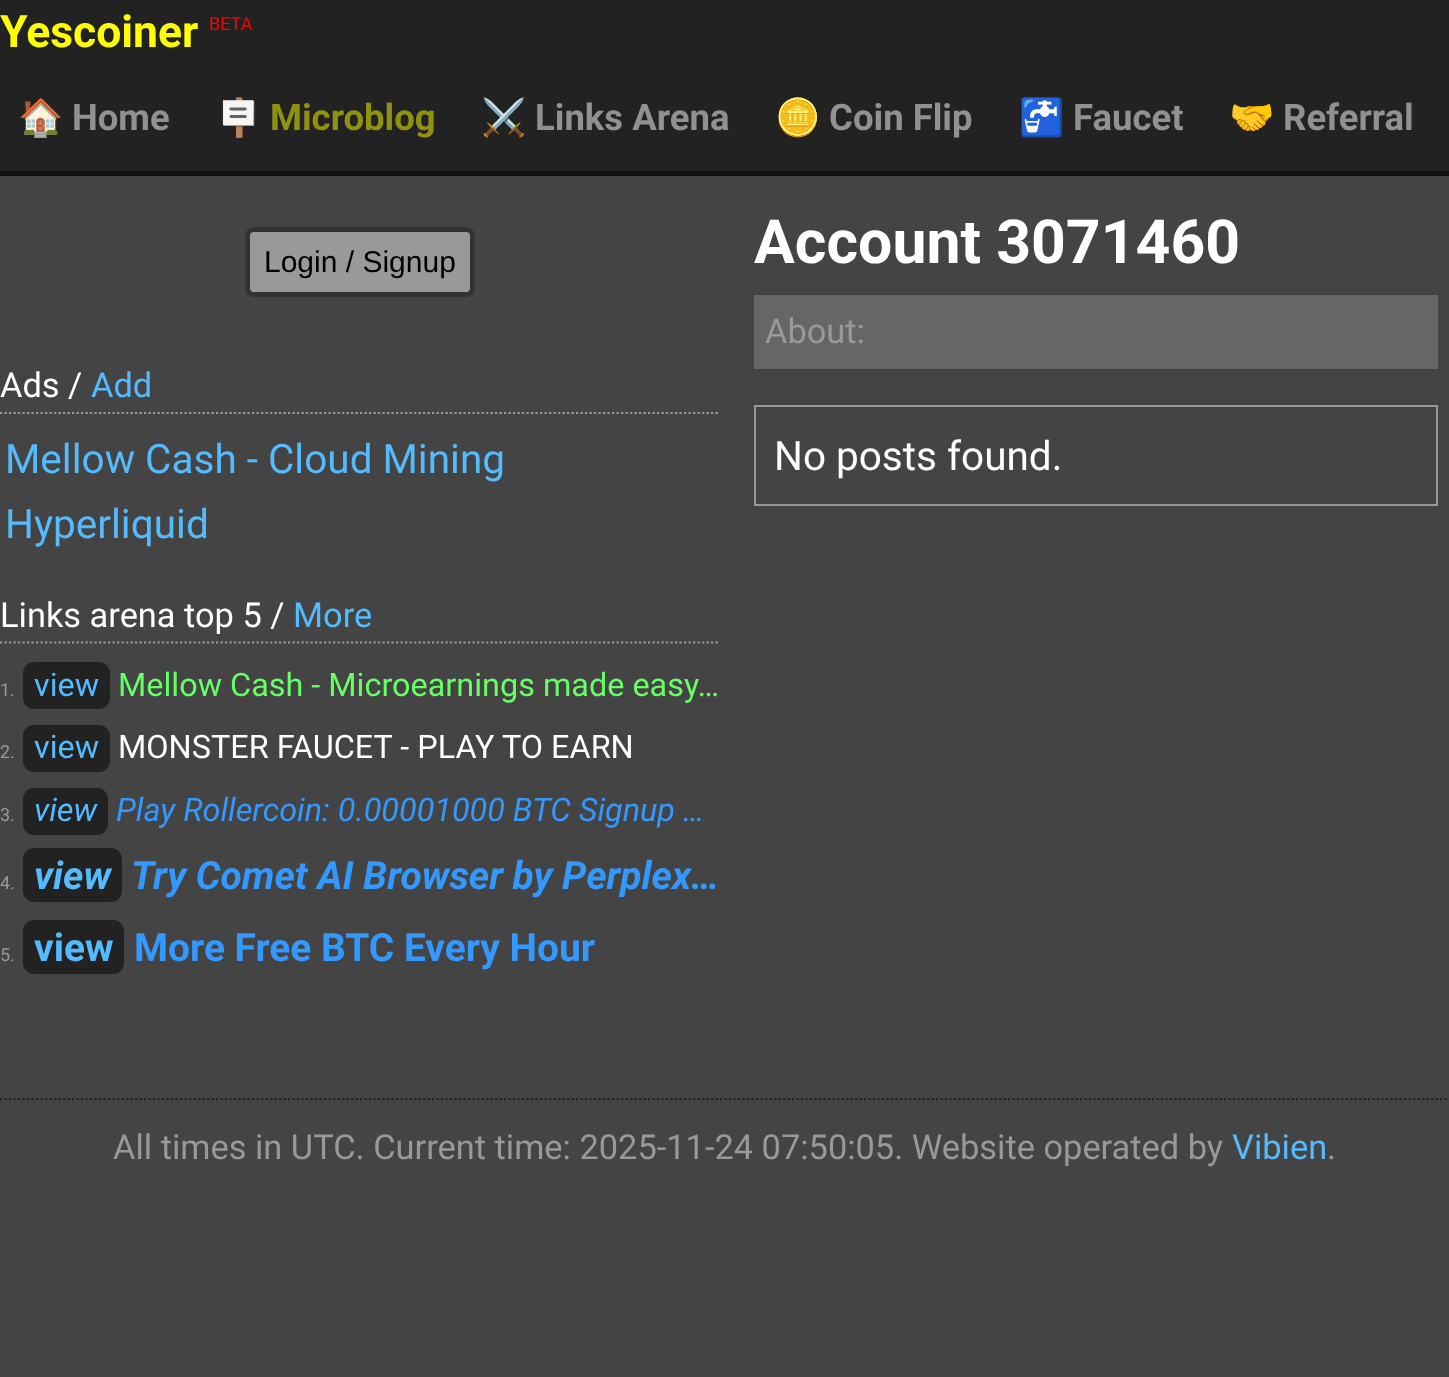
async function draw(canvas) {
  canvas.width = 1449
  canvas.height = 1377
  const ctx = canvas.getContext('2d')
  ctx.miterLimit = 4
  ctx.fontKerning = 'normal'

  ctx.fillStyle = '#444'
  ctx.fillRect(0, 0, 1449, 1377)
  ctx.fillStyle = '#222'
  ctx.fillRect(0, 0, 1449, 171)
  ctx.fillStyle = '#111'
  ctx.fillRect(0, 171, 1449, 5)
  ctx.font = 'bold 44.5px Roboto'
  ctx.fillStyle = '#ff0'
  ctx.fillText('Yescoiner', 0, 47)
  ctx.font = '18px Roboto'
  ctx.fillStyle = '#f00'
  ctx.fillText('BETA', 209, 30)
  ctx.font = 'bold 36.5px Noto Color Emoji'
  ctx.fillStyle = '#919191'
  ctx.fillText('🏠', 18, 130)
  ctx.font = 'bold 36.5px Roboto'
  ctx.fillText('Home', 72, 130)
  ctx.font = 'bold 36.5px Noto Color Emoji'
  ctx.fillStyle = '#919111'
  ctx.fillText('🪧', 216, 130)
  ctx.font = 'bold 36.5px Roboto'
  ctx.fillText('Microblog', 270, 130)
  ctx.font = 'bold 36.5px Noto Color Emoji'
  ctx.fillStyle = '#919191'
  ctx.fillText('⚔️', 481, 130)
  ctx.font = 'bold 36.5px Roboto'
  ctx.fillText('Links Arena', 535, 130)
  ctx.font = 'bold 36.5px Noto Color Emoji'
  ctx.fillText('🪙', 775, 130)
  ctx.font = 'bold 36.5px Roboto'
  ctx.fillText('Coin Flip', 829, 130)
  ctx.font = 'bold 36.5px Noto Color Emoji'
  ctx.fillText('🚰', 1019, 130)
  ctx.font = 'bold 36.5px Roboto'
  ctx.fillText('Faucet', 1073, 130)
  ctx.font = 'bold 36.5px Noto Color Emoji'
  ctx.fillText('🤝', 1229, 130)
  ctx.font = 'bold 36.5px Roboto'
  ctx.fillText('Referral', 1283, 130)
  ctx.fillStyle = '#999'
  ctx.beginPath()
  ctx.roundRect(247.5, 229.5, 225, 65, 6.5)
  ctx.fill()
  ctx.strokeStyle = '#333'
  ctx.lineWidth = 5
  ctx.stroke()
  ctx.font = '30px Liberation Sans'
  ctx.fillStyle = '#000'
  ctx.fillText('Login / Signup', 264, 272)
  ctx.beginPath()
  ctx.moveTo(0, 413)
  ctx.lineTo(720, 413)
  ctx.strokeStyle = '#999'
  ctx.lineWidth = 2.2
  ctx.setLineDash([2.25, 2.25])
  ctx.stroke()
  ctx.font = '34.4px Roboto'
  ctx.fillStyle = '#fff'
  ctx.fillText('Ads /', 0, 397)
  ctx.fillStyle = '#5bf'
  ctx.fillText('Add', 91, 397)
  ctx.font = '40.5px Roboto'
  ctx.fillText('Mellow Cash - Cloud Mining', 5, 473)
  ctx.fillText('Hyperliquid', 5, 538)
  ctx.beginPath()
  ctx.moveTo(0, 642.5)
  ctx.lineTo(720, 642.5)
  ctx.stroke()
  ctx.font = '34.4px Roboto'
  ctx.fillStyle = '#fff'
  ctx.fillText('Links arena top 5 /', 0, 627)
  ctx.fillStyle = '#5bf'
  ctx.fillText('More', 293, 627)
  ctx.font = '18px Roboto'
  ctx.fillStyle = '#999'
  ctx.fillText('1.', 0, 696)
  ctx.fillStyle = '#222'
  ctx.beginPath()
  ctx.roundRect(23, 662, 87, 47, 11)
  ctx.fill()
  ctx.font = '32.4px Roboto'
  ctx.fillStyle = '#5bf'
  ctx.fillText('view', 34, 696)
  ctx.fillStyle = '#6f6'
  ctx.fillText('Mellow Cash - Microearnings made easy…', 118, 696)
  ctx.font = '18px Roboto'
  ctx.fillStyle = '#999'
  ctx.fillText('2.', 0, 758)
  ctx.fillStyle = '#222'
  ctx.beginPath()
  ctx.roundRect(23, 725, 87, 47, 11)
  ctx.fill()
  ctx.font = '32.4px Roboto'
  ctx.fillStyle = '#5bf'
  ctx.fillText('view', 34, 758)
  ctx.fillStyle = '#fff'
  ctx.fillText('MONSTER FAUCET - PLAY TO EARN', 118, 758)
  ctx.font = '18px Roboto'
  ctx.fillStyle = '#999'
  ctx.fillText('3.', 0, 821)
  ctx.fillStyle = '#222'
  ctx.beginPath()
  ctx.roundRect(23, 788, 85, 47, 11)
  ctx.fill()
  ctx.font = 'italic 32.4px Roboto'
  ctx.fillStyle = '#5bf'
  ctx.fillText('view', 34, 821)
  ctx.fillStyle = '#39f'
  ctx.fillText('Play Rollercoin: 0.00001000 BTC Signup …', 116, 821)
  ctx.font = '18px Roboto'
  ctx.fillStyle = '#999'
  ctx.fillText('4.', 0, 889)
  ctx.fillStyle = '#222'
  ctx.beginPath()
  ctx.roundRect(23, 848, 99, 54, 11)
  ctx.fill()
  ctx.font = 'italic bold 38.9px Roboto'
  ctx.fillStyle = '#5bf'
  ctx.fillText('view', 34, 889)
  ctx.fillStyle = '#39f'
  ctx.fillText('Try Comet AI Browser by Perplex…', 131, 889)
  ctx.font = '18px Roboto'
  ctx.fillStyle = '#999'
  ctx.fillText('5.', 0, 961)
  ctx.fillStyle = '#222'
  ctx.beginPath()
  ctx.roundRect(23, 920, 101, 54, 11)
  ctx.fill()
  ctx.font = 'bold 38.9px Roboto'
  ctx.fillStyle = '#5bf'
  ctx.fillText('view', 34, 961)
  ctx.fillStyle = '#39f'
  ctx.fillText('More Free BTC Every Hour', 134, 961)
  ctx.font = 'bold 60.75px Roboto'
  ctx.fillStyle = '#fff'
  ctx.fillText('Account 3071460', 754, 263)
  ctx.fillStyle = '#666'
  ctx.fillRect(754, 295, 684, 74)
  ctx.font = '34.4px Roboto'
  ctx.fillStyle = '#999'
  ctx.fillText('About:', 765, 343)
  ctx.lineWidth = 2
  ctx.setLineDash([])
  ctx.strokeRect(755, 406, 682, 99)
  ctx.font = '40.5px Roboto'
  ctx.fillStyle = '#fff'
  ctx.fillText('No posts found.', 774, 470)
  ctx.beginPath()
  ctx.moveTo(0, 1099)
  ctx.lineTo(1449, 1099)
  ctx.strokeStyle = '#222'
  ctx.lineWidth = 2.2
  ctx.setLineDash([2.25, 2.25])
  ctx.stroke()
  ctx.font = '34.4px Roboto'
  ctx.fillStyle = '#999'
  ctx.fillText('All times in UTC. Current time: 2025-11-24 07:50:05. Website operated by', 113, 1159)
  ctx.fillStyle = '#5bf'
  ctx.fillText('Vibien', 1232, 1159)
  ctx.fillStyle = '#999'
  ctx.fillText('.', 1327, 1159)
}

draw(document.querySelector('canvas'))
